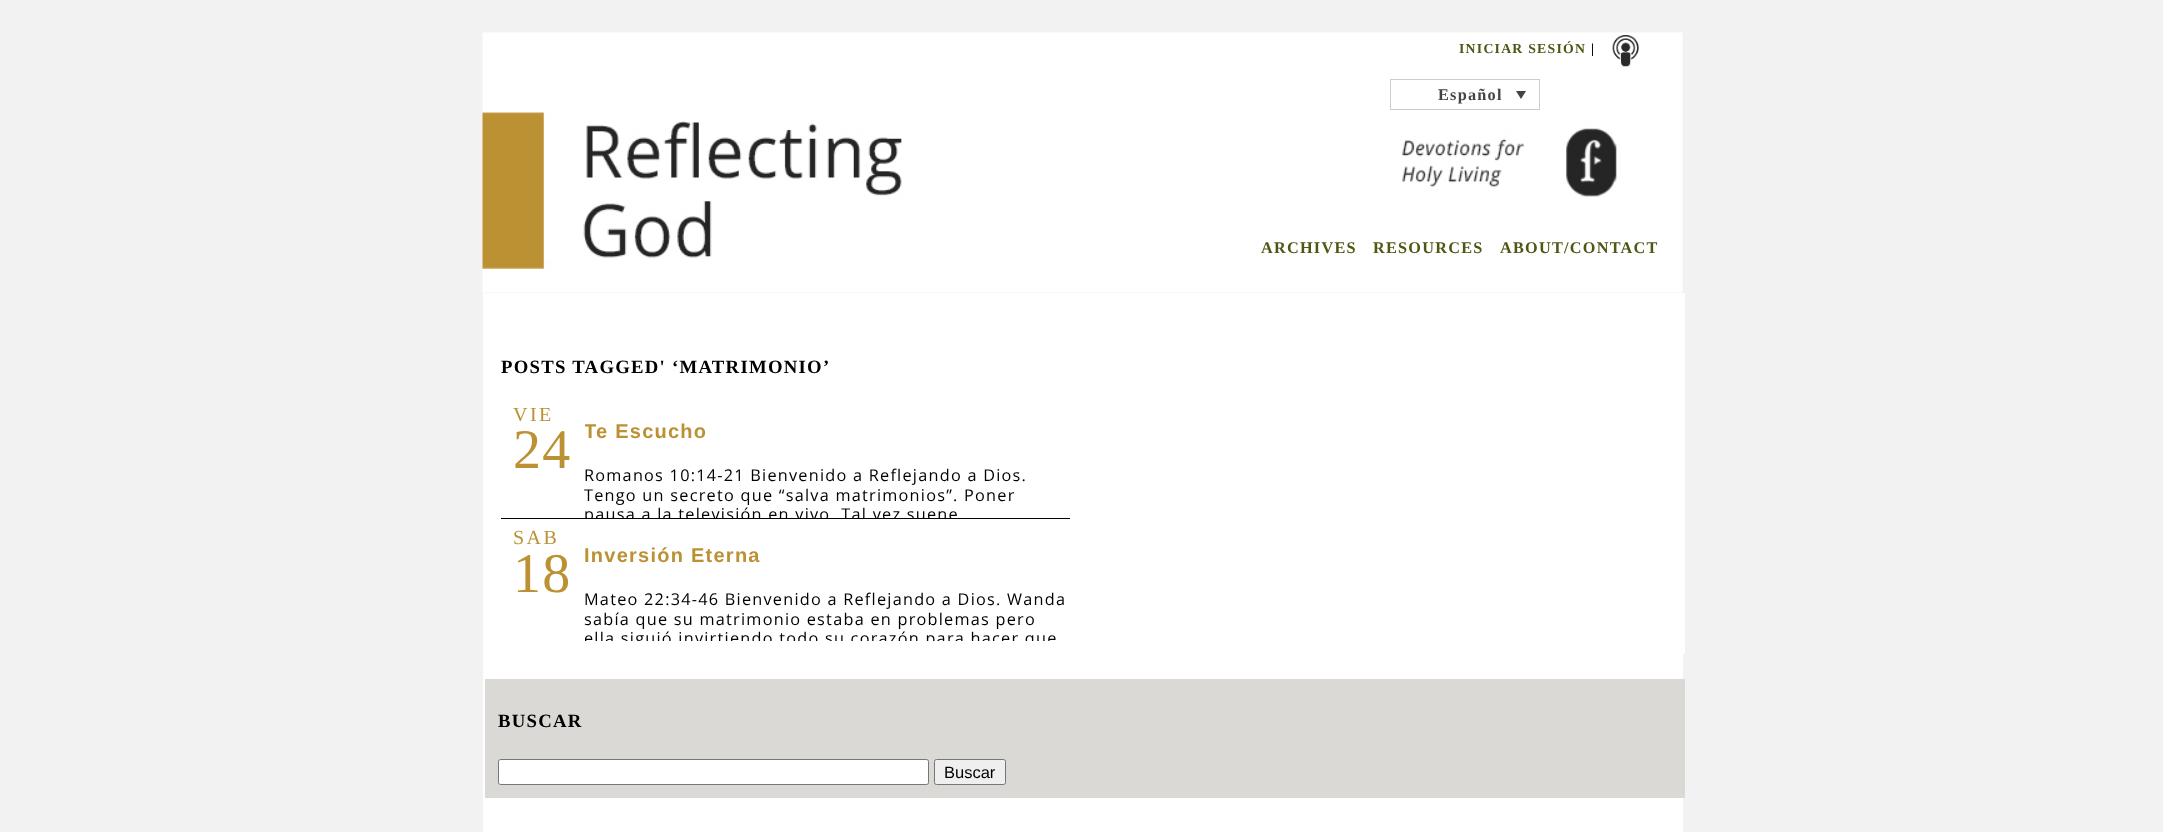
async function draw(canvas) {
  canvas.width = 2163
  canvas.height = 832
  const ctx = canvas.getContext('2d')
  ctx.miterLimit = 4
  ctx.fontKerning = 'normal'
  async function loadImage(src) {
    const img = new Image()
    img.src = src
    await img.decode()
    return img
  }

  ctx.fillStyle = '#f2f2f2'
  ctx.fillRect(0, 0, 2163, 832)
  ctx.drawImage(await loadImage('image0.png'), 482, 32, 1201, 261)
  ctx.letterSpacing = '1.25px'
  ctx.font = 'bold 13.75px Liberation Serif'
  ctx.fillStyle = '#505613'
  ctx.fillText('INICIAR SESIÓN', 1459, 53)
  ctx.fillStyle = '#000'
  ctx.fillText('|', 1591, 53)
  ctx.drawImage(await loadImage('image1.png'), 1612, 35, 27, 32)
  ctx.strokeStyle = '#cdcdcd'
  ctx.strokeRect(1390.5, 79.5, 149, 30)
  ctx.font = 'bold 16.25px Liberation Serif'
  ctx.fillStyle = '#444'
  ctx.fillText('Español', 1438, 100)
  ctx.beginPath()
  ctx.moveTo(1516, 91)
  ctx.lineTo(1526, 91)
  ctx.lineTo(1521, 99)
  ctx.closePath()
  ctx.fill()
  ctx.fillStyle = '#505613'
  ctx.fillText('ARCHIVES', 1261, 253)
  ctx.fillText('RESOURCES', 1373, 253)
  ctx.fillText('ABOUT/CONTACT', 1500, 253)
  ctx.fillStyle = '#fff'
  ctx.fillRect(483, 293, 1200, 539)
  ctx.font = 'bold 18.75px Liberation Serif'
  ctx.fillStyle = '#000'
  ctx.fillText('POSTS TAGGED\' ‘MATRIMONIO’', 501, 373)
  ctx.letterSpacing = '2.5px'
  ctx.font = '20px Liberation Serif'
  ctx.fillStyle = '#bc9133'
  ctx.fillText('VIE', 513, 421)
  ctx.letterSpacing = '1.25px'
  ctx.font = '56px Liberation Serif'
  ctx.fillText('24', 513, 468)
  ctx.save()
  ctx.beginPath()
  ctx.rect(585, 405, 485, 113)
  ctx.clip()
  ctx.font = 'bold 20px Liberation Sans'
  ctx.fillText('Te Escucho', 584, 438)
  ctx.restore()
  ctx.font = '16.25px Open Sans'
  ctx.fillStyle = '#000'
  ctx.fillText('Romanos 10:14-21 Bienvenido a Reflejando a Dios.', 584, 481)
  ctx.fillText('Tengo un secreto que “salva matrimonios”. Poner', 584, 501)
  ctx.save()
  ctx.beginPath()
  ctx.rect(585, 405, 485, 113)
  ctx.clip()
  ctx.fillText('pausa a la televisión en vivo. Tal vez suene', 584, 520)
  ctx.restore()
  ctx.fillRect(501, 518, 569, 1)
  ctx.letterSpacing = '2.5px'
  ctx.font = '20px Liberation Serif'
  ctx.fillStyle = '#bc9133'
  ctx.fillText('SAB', 513, 544)
  ctx.letterSpacing = '1.25px'
  ctx.font = '56px Liberation Serif'
  ctx.fillText('18', 513, 592)
  ctx.font = 'bold 20px Liberation Sans'
  ctx.fillText('Inversión Eterna', 584, 562)
  ctx.font = '16.25px Open Sans'
  ctx.fillStyle = '#000'
  ctx.fillText('Mateo 22:34-46 Bienvenido a Reflejando a Dios. Wanda', 584, 605)
  ctx.fillText('sabía que su matrimonio estaba en problemas pero', 584, 625)
  ctx.save()
  ctx.beginPath()
  ctx.rect(585, 529, 485, 112)
  ctx.clip()
  ctx.fillText('ella siguió invirtiendo todo su corazón para hacer que', 584, 644)
  ctx.restore()
  ctx.fillStyle = '#fff'
  ctx.fillRect(1683, 293, 2, 361)
  ctx.fillStyle = '#dbd9d6'
  ctx.fillRect(485, 679, 1200, 119)
  ctx.font = 'bold 18.75px Liberation Serif'
  ctx.fillStyle = '#000'
  ctx.fillText('BUSCAR', 498, 727)
  ctx.fillStyle = '#fff'
  ctx.beginPath()
  ctx.roundRect(498.5, 759.5, 430, 25, 2)
  ctx.fill()
  ctx.strokeStyle = '#767676'
  ctx.stroke()
  ctx.fillStyle = '#efefef'
  ctx.beginPath()
  ctx.roundRect(934.5, 759.5, 71, 25, 2)
  ctx.fill()
  ctx.stroke()
  ctx.letterSpacing = '0px'
  ctx.font = '16.5px Liberation Sans'
  ctx.fillStyle = '#000'
  ctx.fillText('Buscar', 944, 778)
}

draw(document.querySelector('canvas'))
